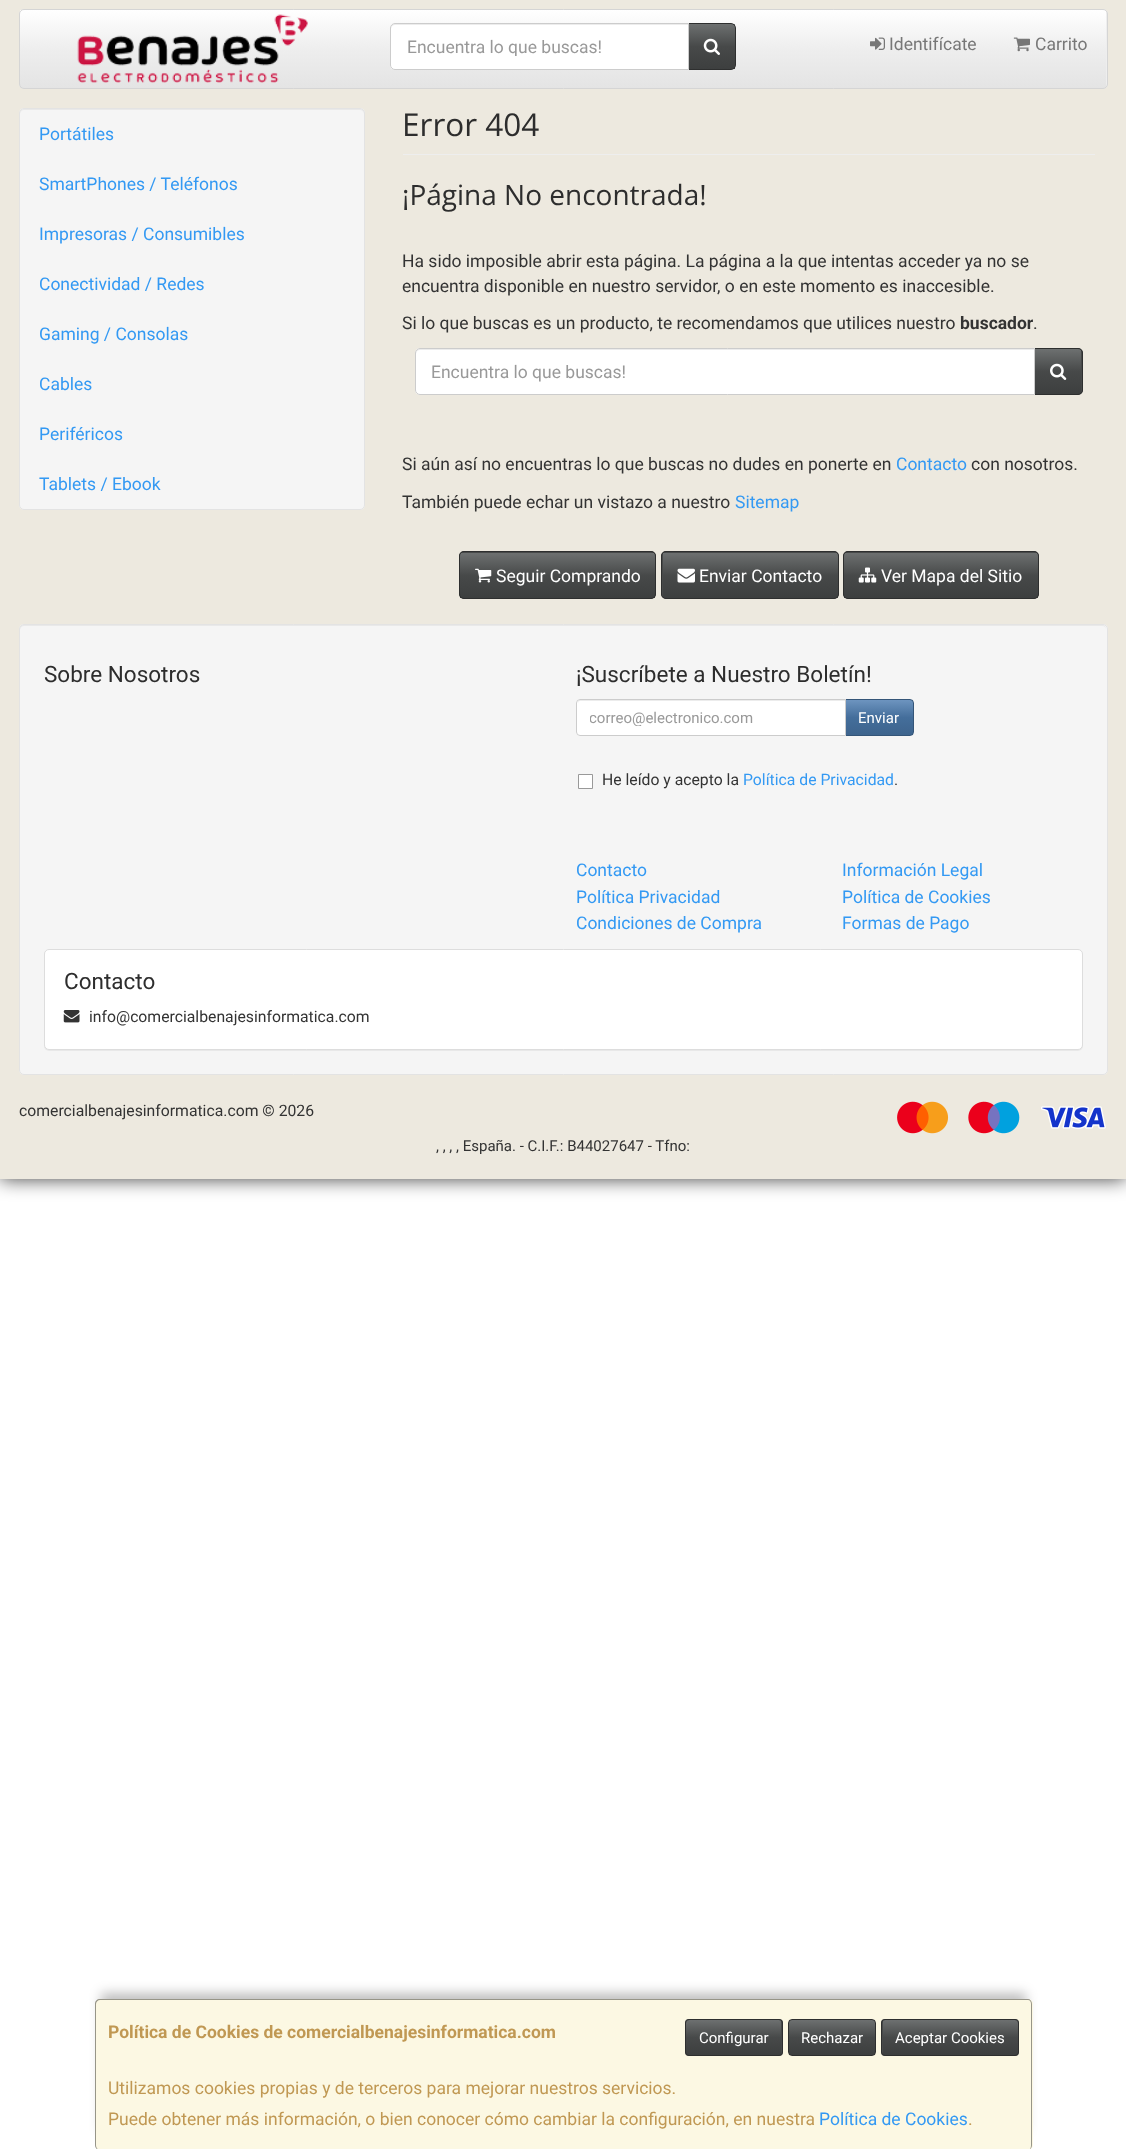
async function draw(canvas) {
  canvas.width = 1126
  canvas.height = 2149
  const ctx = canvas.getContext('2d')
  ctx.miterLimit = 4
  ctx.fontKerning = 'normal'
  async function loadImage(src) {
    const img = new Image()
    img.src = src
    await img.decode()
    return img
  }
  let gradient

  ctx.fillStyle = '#fff'
  ctx.fillRect(0, 0, 1126, 2149)
  ctx.fillStyle = '#000000bf'
  ctx.filter = 'blur(9.5px)'
  ctx.beginPath()
  ctx.rect(0, 0, 1126, 1179)
  ctx.fill()
  ctx.filter = 'none'
  ctx.fillStyle = '#ede9df'
  ctx.fillRect(0, 0, 1126, 1179)
  ctx.fillStyle = '#eee'
  ctx.beginPath()
  ctx.roundRect(19, 9, 1089, 80, 5)
  ctx.fill()
  gradient = ctx.createLinearGradient(563, 10, 563, 88)
  gradient.addColorStop(0, '#fff')
  gradient.addColorStop(0.5, '#eee')
  gradient.addColorStop(1, '#e4e4e4')
  ctx.fillStyle = gradient
  ctx.fillRect(20, 10, 1086, 78)
  ctx.beginPath()
  ctx.roundRect(19.5, 9.5, 1088, 79, 4.5)
  ctx.strokeStyle = '#d5d5d5'
  ctx.stroke()
  ctx.drawImage(await loadImage('image0.png'), 77, 14, 231, 69)
  gradient = ctx.createLinearGradient(712, 24, 712, 69)
  gradient.addColorStop(0, '#6d7070')
  gradient.addColorStop(0.5, '#474949')
  gradient.addColorStop(1, '#3d3f3f')
  ctx.fillStyle = gradient
  ctx.fillRect(689, 24, 46, 45)
  ctx.beginPath()
  ctx.roundRect(688.5, 23.5, 47, 46, [0, 4.5, 4.5, 0])
  ctx.strokeStyle = '#2e2f2f'
  ctx.stroke()
  ctx.fillStyle = '#fff'
  ctx.beginPath()
  ctx.roundRect(390, 23, 299, 47, [5, 0, 0, 5])
  ctx.fill()
  ctx.fillStyle = '#ececec'
  ctx.beginPath()
  ctx.moveTo(395, 25)
  ctx.lineTo(688, 25)
  ctx.lineTo(688, 24)
  ctx.lineTo(395, 24)
  ctx.bezierCurveTo(392, 24, 391, 26, 391, 29)
  ctx.bezierCurveTo(391, 27, 393, 25, 395, 25)
  ctx.closePath()
  ctx.fill()
  ctx.beginPath()
  ctx.roundRect(390.5, 23.5, 298, 46, [4.5, 0, 0, 4.5])
  ctx.strokeStyle = '#ccc'
  ctx.stroke()
  ctx.save()
  ctx.beginPath()
  ctx.rect(406, 36, 267, 20)
  ctx.clip()
  ctx.font = '17.5px Roboto'
  ctx.fillStyle = '#999'
  ctx.fillText('Encuentra lo que buscas!', 407, 53)
  ctx.restore()
  ctx.drawImage(await loadImage('image1.png'), 703, 38, 17, 17)
  ctx.drawImage(await loadImage('image2.png'), 870, 37, 15, 13)
  ctx.font = '17.5px Roboto'
  ctx.fillStyle = '#777'
  ctx.fillText('Identifícate', 889, 50)
  ctx.drawImage(await loadImage('image3.png'), 1013, 37, 17, 15)
  ctx.fillText('Carrito', 1035, 50)
  ctx.fillStyle = '#f5f5f5'
  ctx.beginPath()
  ctx.roundRect(19, 108, 346, 402, 5)
  ctx.fill()
  ctx.fillStyle = '#e9e9e9'
  ctx.beginPath()
  ctx.moveTo(24, 110)
  ctx.lineTo(360, 110)
  ctx.bezierCurveTo(362, 110, 364, 112, 364, 114)
  ctx.lineTo(364, 113)
  ctx.bezierCurveTo(364, 111, 362, 109, 360, 109)
  ctx.lineTo(24, 109)
  ctx.bezierCurveTo(22, 109, 20, 111, 20, 113)
  ctx.lineTo(20, 114)
  ctx.bezierCurveTo(20, 112, 22, 110, 24, 110)
  ctx.closePath()
  ctx.fill()
  ctx.beginPath()
  ctx.roundRect(19.5, 108.5, 345, 401, 4.5)
  ctx.strokeStyle = '#e3e3e3'
  ctx.stroke()
  ctx.fillStyle = '#3399f3'
  ctx.fillText('Portátiles', 39, 140)
  ctx.fillText('SmartPhones / Teléfonos', 39, 190)
  ctx.fillText('Impresoras / Consumibles', 39, 240)
  ctx.fillText('Conectividad / Redes', 39, 290)
  ctx.fillText('Gaming / Consolas', 39, 340)
  ctx.fillText('Cables', 39, 390)
  ctx.fillText('Periféricos', 39, 440)
  ctx.fillText('Tablets / Ebook', 39, 490)
  ctx.fillStyle = '#eee'
  ctx.fillRect(403, 154, 692, 1)
  ctx.font = '31.5px Open Sans'
  ctx.fillStyle = '#2d2d2d'
  ctx.fillText('Error 404', 402, 136)
  ctx.font = '28px Open Sans'
  ctx.fillText('¡Página No encontrada!', 402, 205)
  ctx.font = '17.5px Roboto'
  ctx.fillStyle = '#333'
  ctx.fillText('Ha sido imposible abrir esta página. La página a la que intentas acceder ya no se', 402, 267)
  ctx.fillText('encuentra disponible en nuestro servidor, o en este momento es inaccesible.', 402, 292)
  ctx.fillText('Si lo que buscas es un producto, te recomendamos que utilices nuestro', 402, 329)
  ctx.font = 'bold 17.5px Roboto'
  ctx.fillText('buscador', 960, 329)
  ctx.font = '17.5px Roboto'
  ctx.fillText('.', 1033, 329)
  ctx.fillStyle = '#474949'
  ctx.beginPath()
  ctx.roundRect(1034, 348, 49, 47, [0, 5, 5, 0])
  ctx.fill()
  gradient = ctx.createLinearGradient(1058, 349, 1058, 394)
  gradient.addColorStop(0, '#6d7070')
  gradient.addColorStop(0.5, '#474949')
  gradient.addColorStop(1, '#3d3f3f')
  ctx.fillStyle = gradient
  ctx.fillRect(1035, 349, 46, 45)
  ctx.beginPath()
  ctx.roundRect(1034.5, 348.5, 48, 46, [0, 4.5, 4.5, 0])
  ctx.strokeStyle = '#2e2f2f'
  ctx.stroke()
  ctx.fillStyle = '#fff'
  ctx.beginPath()
  ctx.roundRect(415, 348, 620, 47, [5, 0, 0, 5])
  ctx.fill()
  ctx.fillStyle = '#ececec'
  ctx.beginPath()
  ctx.moveTo(420, 350)
  ctx.lineTo(1034, 350)
  ctx.lineTo(1034, 349)
  ctx.lineTo(420, 349)
  ctx.bezierCurveTo(417, 349, 416, 351, 416, 354)
  ctx.bezierCurveTo(416, 352, 418, 350, 420, 350)
  ctx.closePath()
  ctx.fill()
  ctx.beginPath()
  ctx.roundRect(415.5, 348.5, 619, 46, [4.5, 0, 0, 4.5])
  ctx.strokeStyle = '#ccc'
  ctx.stroke()
  ctx.fillStyle = '#999'
  ctx.fillText('Encuentra lo que buscas!', 431, 378)
  ctx.drawImage(await loadImage('image4.png'), 1050, 363, 17, 17)
  ctx.fillStyle = '#333'
  ctx.fillText('Si aún así no encuentras lo que buscas no dudes en ponerte en', 402, 470)
  ctx.fillStyle = '#3399f3'
  ctx.fillText('Contacto', 896, 470)
  ctx.fillStyle = '#333'
  ctx.fillText('con nosotros.', 971, 470)
  ctx.fillText('También puede echar un vistazo a nuestro', 402, 508)
  ctx.fillStyle = '#3399f3'
  ctx.fillText('Sitemap', 735, 508)
  ctx.fillStyle = '#474949'
  ctx.beginPath()
  ctx.roundRect(459, 551, 197, 48, 5)
  ctx.fill()
  gradient = ctx.createLinearGradient(558, 553, 558, 598)
  gradient.addColorStop(0, '#6d7070')
  gradient.addColorStop(0.5, '#474949')
  gradient.addColorStop(1, '#3d3f3f')
  ctx.fillStyle = gradient
  ctx.fillRect(460, 553, 195, 45)
  ctx.beginPath()
  ctx.roundRect(459.5, 551.5, 196, 47, 4.5)
  ctx.strokeStyle = '#2e2f2f'
  ctx.stroke()
  ctx.drawImage(await loadImage('image5.png'), 475, 568, 17, 15)
  ctx.fillStyle = '#fff'
  ctx.fillText('Seguir Comprando', 496, 582)
  ctx.fillStyle = '#474949'
  ctx.beginPath()
  ctx.roundRect(661, 551, 178, 48, 5)
  ctx.fill()
  gradient = ctx.createLinearGradient(750, 553, 750, 598)
  gradient.addColorStop(0, '#6d7070')
  gradient.addColorStop(0.5, '#474949')
  gradient.addColorStop(1, '#3d3f3f')
  ctx.fillStyle = gradient
  ctx.fillRect(663, 553, 175, 45)
  ctx.beginPath()
  ctx.roundRect(661.5, 551.5, 177, 47, 4.5)
  ctx.stroke()
  ctx.drawImage(await loadImage('image6.png'), 677, 568, 18, 15)
  ctx.fillStyle = '#fff'
  ctx.fillText('Enviar Contacto', 699, 582)
  ctx.fillStyle = '#474949'
  ctx.beginPath()
  ctx.roundRect(843, 551, 196, 48, 5)
  ctx.fill()
  gradient = ctx.createLinearGradient(941, 553, 941, 598)
  gradient.addColorStop(0, '#6d7070')
  gradient.addColorStop(0.5, '#474949')
  gradient.addColorStop(1, '#3d3f3f')
  ctx.fillStyle = gradient
  ctx.fillRect(844, 553, 194, 45)
  ctx.beginPath()
  ctx.roundRect(843.5, 551.5, 195, 47, 4.5)
  ctx.stroke()
  ctx.drawImage(await loadImage('image7.png'), 858, 567, 19, 16)
  ctx.fillStyle = '#fff'
  ctx.fillText('Ver Mapa del Sitio', 881, 582)
  ctx.fillStyle = '#f5f5f5'
  ctx.beginPath()
  ctx.roundRect(19, 624, 1089, 451, 5)
  ctx.fill()
  ctx.fillStyle = '#e9e9e9'
  ctx.beginPath()
  ctx.moveTo(24, 626)
  ctx.lineTo(1102, 626)
  ctx.bezierCurveTo(1105, 626, 1106, 628, 1106, 630)
  ctx.bezierCurveTo(1106, 627, 1105, 625, 1102, 625)
  ctx.lineTo(24, 625)
  ctx.bezierCurveTo(21, 625, 20, 627, 20, 630)
  ctx.bezierCurveTo(20, 628, 22, 626, 24, 626)
  ctx.closePath()
  ctx.fill()
  ctx.beginPath()
  ctx.roundRect(19.5, 624.5, 1088, 450, 4.5)
  ctx.strokeStyle = '#e3e3e3'
  ctx.stroke()
  ctx.font = '22.5px Roboto'
  ctx.fillStyle = '#2d2d2d'
  ctx.fillText('Sobre Nosotros', 44, 682)
  ctx.fillText('¡Suscríbete a Nuestro Boletín!', 576, 682)
  gradient = ctx.createLinearGradient(879, 700, 879, 735)
  gradient.addColorStop(0, '#6d94bf')
  gradient.addColorStop(0.5, '#446e9b')
  gradient.addColorStop(1, '#3e648d')
  ctx.fillStyle = gradient
  ctx.fillRect(846, 700, 67, 35)
  ctx.beginPath()
  ctx.roundRect(845.5, 699.5, 68, 36, [0, 3.5, 3.5, 0])
  ctx.strokeStyle = '#345578'
  ctx.stroke()
  ctx.fillStyle = '#fff'
  ctx.beginPath()
  ctx.roundRect(576, 699, 270, 37, [4, 0, 0, 4])
  ctx.fill()
  ctx.fillStyle = '#ececec'
  ctx.beginPath()
  ctx.moveTo(580, 701)
  ctx.lineTo(845, 701)
  ctx.lineTo(845, 700)
  ctx.lineTo(580, 700)
  ctx.bezierCurveTo(578, 700, 578, 702, 578, 704)
  ctx.bezierCurveTo(578, 702, 579, 701, 580, 701)
  ctx.closePath()
  ctx.fill()
  ctx.beginPath()
  ctx.roundRect(576.5, 699.5, 269, 36, [3.5, 0, 0, 3.5])
  ctx.strokeStyle = '#ccc'
  ctx.stroke()
  ctx.save()
  ctx.beginPath()
  ctx.rect(590, 709, 243, 17)
  ctx.clip()
  ctx.font = '15px Roboto'
  ctx.fillStyle = '#999'
  ctx.fillText('correo@electronico.com', 589, 723)
  ctx.restore()
  ctx.font = '15px Roboto'
  ctx.fillStyle = '#fff'
  ctx.fillText('Enviar', 858, 723)
  ctx.beginPath()
  ctx.rect(578.5, 774.5, 14, 14)
  ctx.fill()
  ctx.strokeStyle = '#999'
  ctx.stroke()
  ctx.font = '15.75px Roboto'
  ctx.fillStyle = '#333'
  ctx.fillText('He leído y acepto la', 602, 785)
  ctx.fillStyle = '#3399f3'
  ctx.fillText('Política de Privacidad', 743, 785)
  ctx.fillStyle = '#333'
  ctx.fillText('.', 894, 785)
  ctx.font = '17.5px Roboto'
  ctx.fillStyle = '#3399f3'
  ctx.fillText('Contacto', 576, 876)
  ctx.fillText('Información Legal', 842, 876)
  ctx.fillText('Política Privacidad', 576, 903)
  ctx.fillText('Política de Cookies', 842, 903)
  ctx.fillText('Condiciones de Compra', 576, 929)
  ctx.fillText('Formas de Pago', 842, 929)
  ctx.fillStyle = '#0000000d'
  ctx.filter = 'blur(0.5px)'
  ctx.beginPath()
  ctx.roundRect(44, 950, 1039, 101, 5)
  ctx.fill()
  ctx.filter = 'none'
  ctx.fillStyle = '#fff'
  ctx.beginPath()
  ctx.roundRect(44.5, 949.5, 1038, 100, 4.5)
  ctx.fill()
  ctx.strokeStyle = '#ddd'
  ctx.stroke()
  ctx.font = '22.5px Roboto'
  ctx.fillStyle = '#2d2d2d'
  ctx.fillText('Contacto', 64, 989)
  ctx.drawImage(await loadImage('image8.png'), 63, 1010, 17, 13)
  ctx.font = '15.75px Roboto'
  ctx.fillStyle = '#333'
  ctx.fillText('info@comercialbenajesinformatica.com', 89, 1022)
  ctx.fillText('comercialbenajesinformatica.com © 2026', 19, 1116)
  ctx.drawImage(await loadImage('image9.png'), 897, 1101, 52, 33)
  ctx.drawImage(await loadImage('image10.png'), 968, 1101, 52, 33)
  ctx.drawImage(await loadImage('image11.png'), 1041, 1106, 65, 23)
  ctx.font = '15px Roboto'
  ctx.fillText(', , , , España. - C.I.F.: B44027647 - Tfno:', 436, 1151)
  ctx.fillStyle = '#00000040'
  ctx.filter = 'blur(6px)'
  ctx.beginPath()
  ctx.rect(101, 1993, 925, 138)
  ctx.fill()
  ctx.filter = 'none'
  ctx.fillStyle = '#fcf8e3'
  ctx.beginPath()
  ctx.roundRect(95, 1999, 938, 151, 5)
  ctx.fill()
  ctx.fillStyle = '#00000066'
  ctx.beginPath()
  ctx.moveTo(100, 1999)
  ctx.lineTo(1028, 1999)
  ctx.bezierCurveTo(1030, 1999, 1032, 2001, 1032, 2004)
  ctx.lineTo(1032, 2145)
  ctx.bezierCurveTo(1032, 2148, 1030, 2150, 1028, 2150)
  ctx.lineTo(100, 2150)
  ctx.bezierCurveTo(97, 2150, 95, 2148, 95, 2145)
  ctx.lineTo(95, 2004)
  ctx.bezierCurveTo(95, 2001, 97, 1999, 100, 1999)
  ctx.closePath()
  ctx.moveTo(100, 2000)
  ctx.lineTo(1028, 2000)
  ctx.bezierCurveTo(1030, 2000, 1031, 2002, 1031, 2004)
  ctx.lineTo(1031, 2145)
  ctx.bezierCurveTo(1031, 2148, 1030, 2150, 1028, 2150)
  ctx.lineTo(100, 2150)
  ctx.bezierCurveTo(98, 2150, 96, 2148, 96, 2145)
  ctx.lineTo(96, 2004)
  ctx.bezierCurveTo(96, 2002, 98, 2000, 100, 2000)
  ctx.closePath()
  ctx.fill('evenodd')
  ctx.font = 'bold 17.5px Roboto'
  ctx.fillStyle = '#c09853'
  ctx.fillText('Política de Cookies de comercialbenajesinformatica.com', 108, 2038)
  ctx.fillStyle = '#474949'
  ctx.beginPath()
  ctx.roundRect(685, 2019, 98, 37, 4)
  ctx.fill()
  gradient = ctx.createLinearGradient(734, 2020, 734, 2055)
  gradient.addColorStop(0, '#6d7070')
  gradient.addColorStop(0.5, '#474949')
  gradient.addColorStop(1, '#3d3f3f')
  ctx.fillStyle = gradient
  ctx.fillRect(686, 2020, 95, 35)
  ctx.beginPath()
  ctx.roundRect(685.5, 2019.5, 97, 36, 3.5)
  ctx.strokeStyle = '#2e2f2f'
  ctx.stroke()
  ctx.font = '15px Roboto'
  ctx.fillStyle = '#fff'
  ctx.fillText('Configurar', 699, 2043)
  ctx.save()
  ctx.beginPath()
  ctx.roundRect(788, 2019, 88, 37, 4)
  ctx.clip()
  gradient = ctx.createLinearGradient(832, 2020, 832, 2055)
  gradient.addColorStop(0, '#6d7070')
  gradient.addColorStop(0.5, '#474949')
  gradient.addColorStop(1, '#3d3f3f')
  ctx.fillStyle = gradient
  ctx.fillRect(789, 2020, 86, 35)
  ctx.restore()
  ctx.beginPath()
  ctx.roundRect(788.5, 2019.5, 87, 36, 3.5)
  ctx.stroke()
  ctx.fillText('Rechazar', 801, 2043)
  ctx.fillStyle = '#474949'
  ctx.beginPath()
  ctx.roundRect(881, 2019, 138, 37, 4)
  ctx.fill()
  gradient = ctx.createLinearGradient(950, 2020, 950, 2055)
  gradient.addColorStop(0, '#6d7070')
  gradient.addColorStop(0.5, '#474949')
  gradient.addColorStop(1, '#3d3f3f')
  ctx.fillStyle = gradient
  ctx.fillRect(883, 2020, 135, 35)
  ctx.beginPath()
  ctx.roundRect(881.5, 2019.5, 137, 36, 3.5)
  ctx.stroke()
  ctx.fillStyle = '#fff'
  ctx.fillText('Aceptar Cookies', 895, 2043)
  ctx.font = '17.5px Roboto'
  ctx.fillStyle = '#c09853'
  ctx.fillText('Utilizamos cookies propias y de terceros para mejorar nuestros servicios.', 108, 2094)
  ctx.fillText('Puede obtener más información, o bien conocer cómo cambiar la configuración, en nuestra', 108, 2125)
  ctx.fillStyle = '#3399f3'
  ctx.fillText('Política de Cookies', 819, 2125)
  ctx.fillStyle = '#c09853'
  ctx.fillText('.', 968, 2125)
}

draw(document.querySelector('canvas'))
